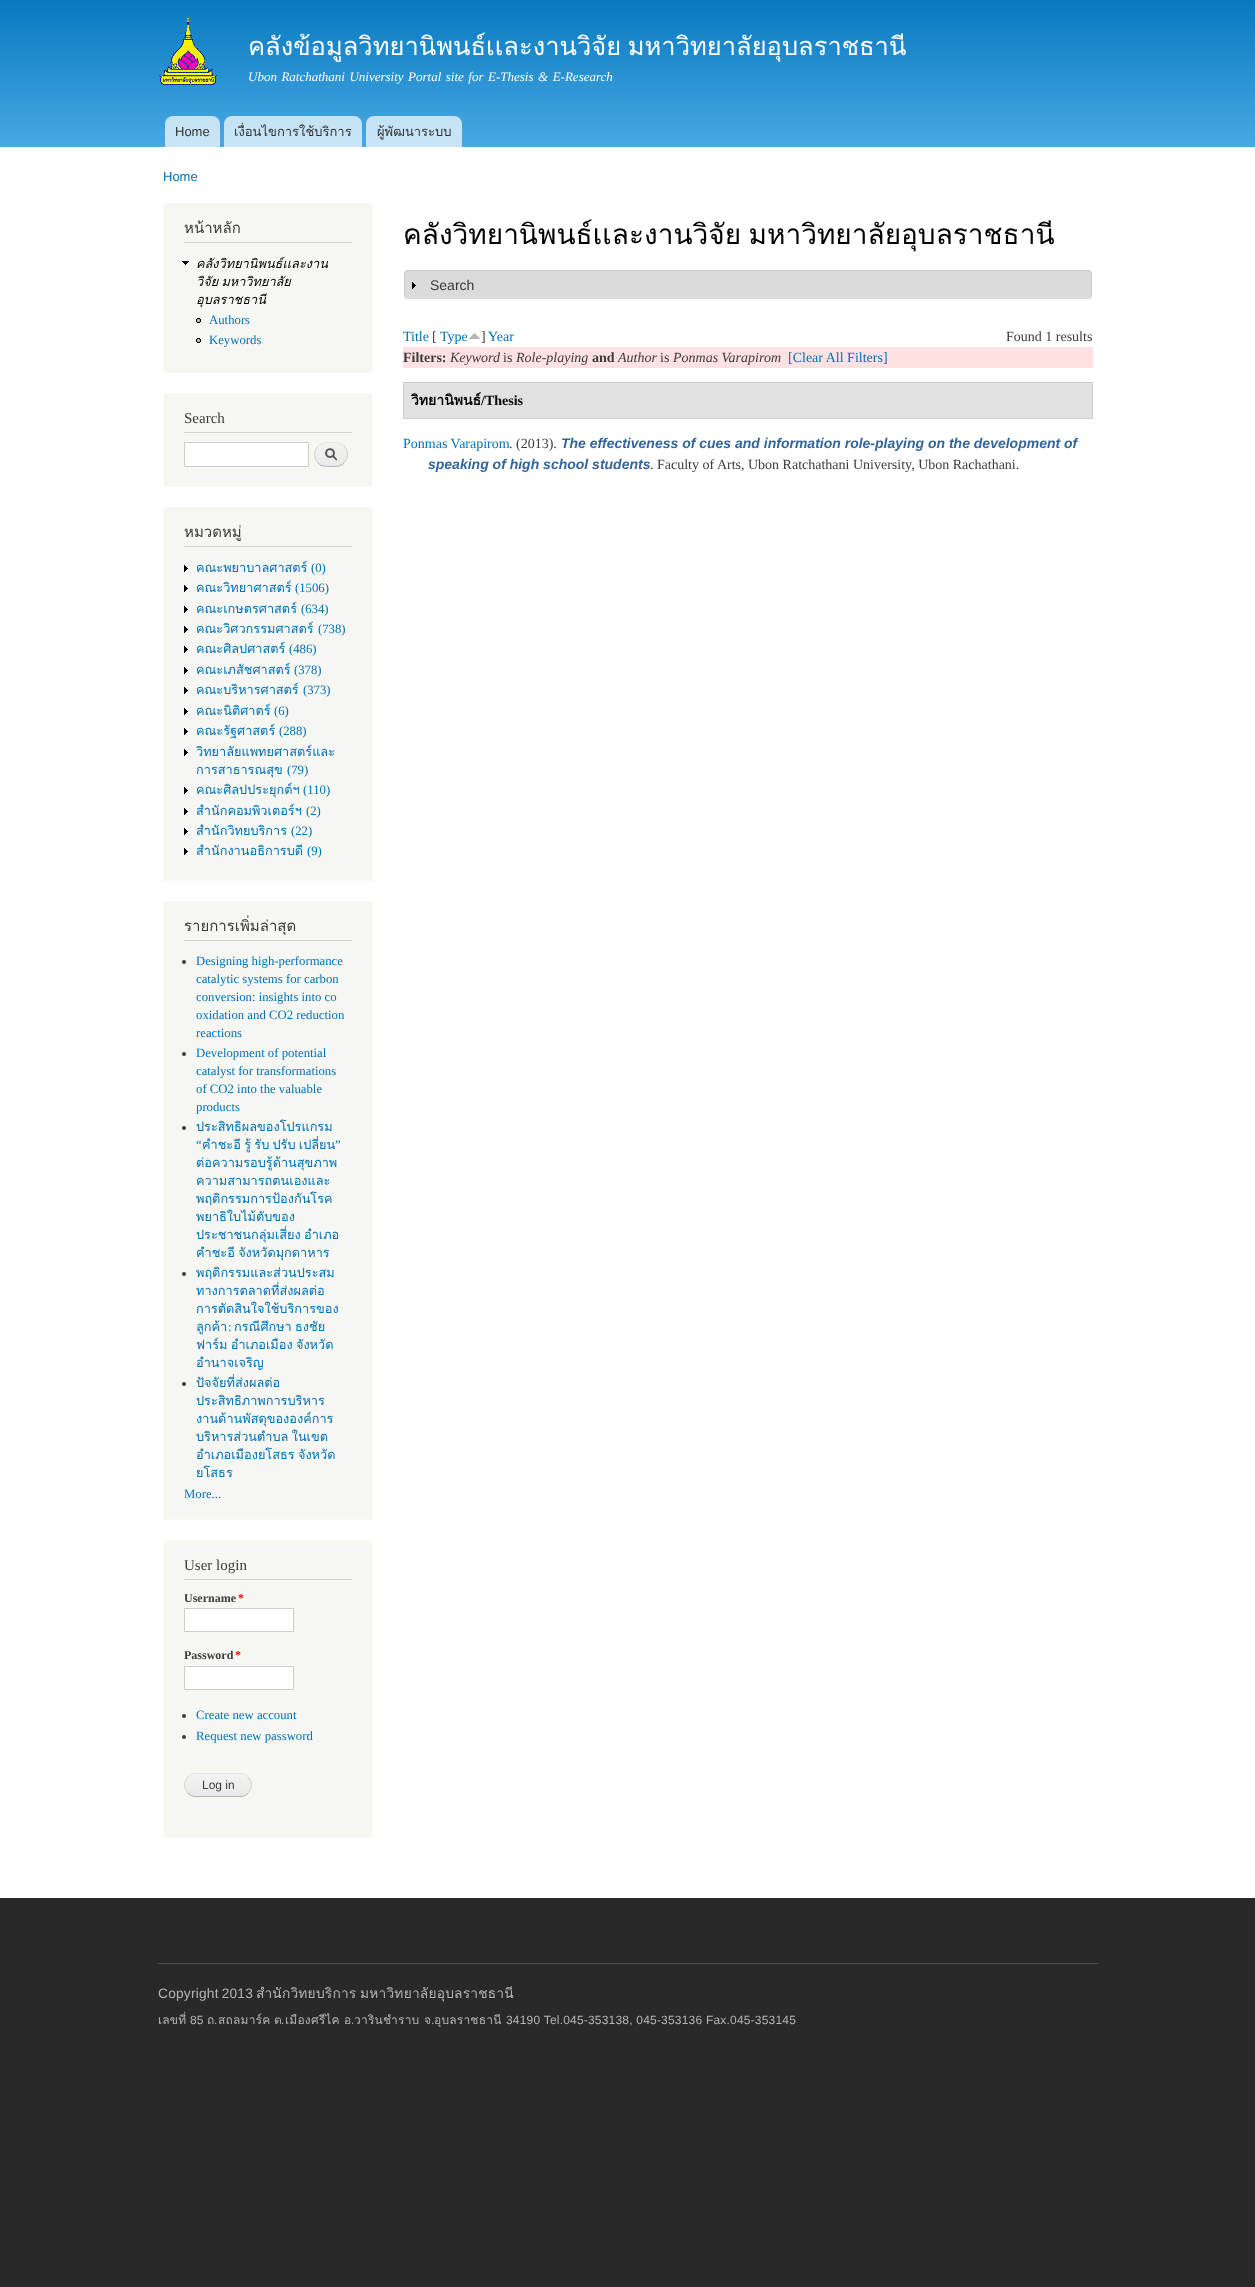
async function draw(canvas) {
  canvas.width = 1255
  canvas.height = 2287
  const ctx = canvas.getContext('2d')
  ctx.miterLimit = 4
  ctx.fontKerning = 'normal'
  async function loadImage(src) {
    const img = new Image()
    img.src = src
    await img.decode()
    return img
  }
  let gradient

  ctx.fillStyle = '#292929'
  ctx.fillRect(0, 0, 1255, 2287)
  ctx.fillStyle = '#fff'
  ctx.fillRect(0, 147, 1255, 1751)
  gradient = ctx.createLinearGradient(628, 0, 628, 147)
  gradient.addColorStop(0, '#0779bf')
  gradient.addColorStop(1, '#48a9e4')
  ctx.fillStyle = gradient
  ctx.fillRect(0, 0, 1255, 147)
  ctx.drawImage(await loadImage('image0.png'), 159, 17, 58, 68)
  ctx.wordSpacing = '-2px'
  ctx.font = '25.5px Loma'
  ctx.fillStyle = '#fffeff'
  ctx.fillText('คลังข้อมูลวิทยานิพนธ์เเละงานวิจัย มหาวิทยาลัยอุบลราชธานี', 248, 55)
  ctx.wordSpacing = '1.25px'
  ctx.font = 'italic 13px Liberation Serif'
  ctx.fillText('Ubon Ratchathani University Portal site for E-Thesis & E-Research', 248, 81)
  ctx.fillStyle = '#ffffffb3'
  ctx.beginPath()
  ctx.roundRect(165, 116, 55, 31, [8, 8, 0, 0])
  ctx.fill()
  ctx.wordSpacing = '0px'
  ctx.font = '13px Liberation Sans'
  ctx.fillStyle = '#333'
  ctx.fillText('Home', 175, 136)
  ctx.fillStyle = '#ffffffb3'
  ctx.beginPath()
  ctx.roundRect(224, 116, 138, 31, [8, 8, 0, 0])
  ctx.fill()
  ctx.font = '13px Loma'
  ctx.fillStyle = '#333'
  ctx.fillText('เงื่อนไขการใช้บริการ', 234, 136)
  ctx.fillStyle = '#ffffffb3'
  ctx.beginPath()
  ctx.roundRect(366, 116, 96, 31, [8, 8, 0, 0])
  ctx.fill()
  ctx.fillStyle = '#333'
  ctx.fillText('ผู้พัฒนาระบบ', 377, 136)
  ctx.font = '13px Liberation Sans'
  ctx.fillStyle = '#0071b3'
  ctx.fillText('Home', 163, 181)
  ctx.fillStyle = '#f6f6f2'
  ctx.beginPath()
  ctx.rect(163.5, 203.5, 209, 169)
  ctx.fill()
  ctx.strokeStyle = '#f9f9f9'
  ctx.stroke()
  ctx.fillStyle = '#d6d6d6'
  ctx.fillRect(184, 242, 168, 1)
  ctx.font = '15px Loma'
  ctx.fillStyle = '#3b3b3b'
  ctx.fillText('หน้าหลัก', 184, 233)
  ctx.drawImage(await loadImage('image1.png'), 182, 261, 7, 4)
  ctx.font = 'italic 12.75px Loma'
  ctx.fillStyle = '#000'
  ctx.fillText('คลังวิทยานิพนธ์เเละงาน', 196, 268)
  ctx.wordSpacing = '-1px'
  ctx.fillText('วิจัย มหาวิทยาลัย', 196, 286)
  ctx.wordSpacing = '0px'
  ctx.fillText('อุบลราชธานี', 196, 304)
  ctx.drawImage(await loadImage('image2.png'), 196, 318, 5, 5)
  ctx.font = '12.75px Liberation Serif'
  ctx.fillStyle = '#0071b3'
  ctx.fillText('Authors', 209, 324)
  ctx.drawImage(await loadImage('image2.png'), 196, 338, 5, 5)
  ctx.fillText('Keywords', 209, 344)
  ctx.fillStyle = '#f6f6f2'
  ctx.beginPath()
  ctx.rect(163.5, 393.5, 209, 93)
  ctx.fill()
  ctx.stroke()
  ctx.fillStyle = '#d6d6d6'
  ctx.fillRect(184, 432, 168, 1)
  ctx.font = '15px Liberation Serif'
  ctx.fillStyle = '#3b3b3b'
  ctx.fillText('Search', 184, 423)
  ctx.fillStyle = '#fff'
  ctx.beginPath()
  ctx.rect(184.5, 442.5, 124, 24)
  ctx.fill()
  ctx.strokeStyle = '#ccc'
  ctx.stroke()
  ctx.drawImage(await loadImage('image3.png'), 314, 444, 34, 23)
  ctx.beginPath()
  ctx.moveTo(318, 446)
  ctx.bezierCurveTo(321.5, 442.5, 326, 442.5, 331, 442.5)
  ctx.bezierCurveTo(336, 442.5, 340.5, 442.5, 344, 446)
  ctx.strokeStyle = '#e4e4e4'
  ctx.stroke()
  ctx.beginPath()
  ctx.moveTo(344, 446)
  ctx.bezierCurveTo(348.5, 450.5, 348.5, 458.5, 344, 463)
  ctx.strokeStyle = '#d2d2d2'
  ctx.stroke()
  ctx.beginPath()
  ctx.moveTo(344, 463)
  ctx.bezierCurveTo(340.5, 466.5, 336, 466.5, 331, 466.5)
  ctx.bezierCurveTo(326, 466.5, 321.5, 466.5, 318, 463)
  ctx.strokeStyle = '#b4b4b4'
  ctx.stroke()
  ctx.beginPath()
  ctx.moveTo(318, 463)
  ctx.bezierCurveTo(313.5, 458.5, 313.5, 450.5, 318, 446)
  ctx.strokeStyle = '#d2d2d2'
  ctx.stroke()
  ctx.fillStyle = '#f6f6f2'
  ctx.beginPath()
  ctx.rect(163.5, 507.5, 209, 373)
  ctx.fill()
  ctx.strokeStyle = '#f9f9f9'
  ctx.stroke()
  ctx.fillStyle = '#d6d6d6'
  ctx.fillRect(184, 546, 168, 1)
  ctx.font = '15px Loma'
  ctx.fillStyle = '#3b3b3b'
  ctx.fillText('หมวดหมู่', 184, 537)
  ctx.drawImage(await loadImage('image4.png'), 184, 565, 4, 7)
  ctx.font = '12.75px Loma'
  ctx.fillStyle = '#0071b3'
  ctx.fillText('คณะพยาบาลศาสตร์', 196, 572)
  ctx.font = '12.75px Liberation Serif'
  ctx.fillText('(0)', 311, 572)
  ctx.drawImage(await loadImage('image4.png'), 184, 585, 4, 7)
  ctx.font = '12.75px Loma'
  ctx.fillText('คณะวิทยาศาสตร์', 196, 592)
  ctx.font = '12.75px Liberation Serif'
  ctx.fillText('(1506)', 295, 592)
  ctx.drawImage(await loadImage('image4.png'), 184, 606, 4, 7)
  ctx.font = '12.75px Loma'
  ctx.fillText('คณะเกษตรศาสตร์', 196, 613)
  ctx.font = '12.75px Liberation Serif'
  ctx.fillText('(634)', 301, 613)
  ctx.drawImage(await loadImage('image4.png'), 184, 626, 4, 7)
  ctx.font = '12.75px Loma'
  ctx.fillText('คณะวิศวกรรมศาสตร์', 196, 633)
  ctx.font = '12.75px Liberation Serif'
  ctx.fillText('(738)', 318, 633)
  ctx.drawImage(await loadImage('image4.png'), 184, 646, 4, 7)
  ctx.font = '12.75px Loma'
  ctx.fillText('คณะศิลปศาสตร์', 196, 653)
  ctx.font = '12.75px Liberation Serif'
  ctx.fillText('(486)', 289, 653)
  ctx.drawImage(await loadImage('image4.png'), 184, 667, 4, 7)
  ctx.font = '12.75px Loma'
  ctx.fillText('คณะเภสัชศาสตร์', 196, 674)
  ctx.font = '12.75px Liberation Serif'
  ctx.fillText('(378)', 294, 674)
  ctx.drawImage(await loadImage('image4.png'), 184, 687, 4, 7)
  ctx.font = '12.75px Loma'
  ctx.fillText('คณะบริหารศาสตร์', 196, 694)
  ctx.font = '12.75px Liberation Serif'
  ctx.fillText('(373)', 303, 694)
  ctx.drawImage(await loadImage('image4.png'), 184, 708, 4, 7)
  ctx.font = '12.75px Loma'
  ctx.fillText('คณะนิติศาตร์', 196, 715)
  ctx.font = '12.75px Liberation Serif'
  ctx.fillText('(6)', 274, 715)
  ctx.drawImage(await loadImage('image4.png'), 184, 728, 4, 7)
  ctx.font = '12.75px Loma'
  ctx.fillText('คณะรัฐศาสตร์', 196, 735)
  ctx.font = '12.75px Liberation Serif'
  ctx.fillText('(288)', 279, 735)
  ctx.drawImage(await loadImage('image4.png'), 184, 749, 4, 7)
  ctx.font = '12.75px Loma'
  ctx.fillText('วิทยาลัยแพทยศาสตร์และ', 196, 756)
  ctx.fillText('การสาธารณสุข', 196, 774)
  ctx.font = '12.75px Liberation Serif'
  ctx.fillText('(79)', 287, 774)
  ctx.drawImage(await loadImage('image4.png'), 184, 787, 4, 7)
  ctx.font = '12.75px Loma'
  ctx.fillText('คณะศิลปประยุกต์ฯ', 196, 794)
  ctx.font = '12.75px Liberation Serif'
  ctx.fillText('(110)', 303, 794)
  ctx.drawImage(await loadImage('image4.png'), 184, 808, 4, 7)
  ctx.font = '12.75px Loma'
  ctx.fillText('สำนักคอมพิวเตอร์ฯ', 196, 815)
  ctx.font = '12.75px Liberation Serif'
  ctx.fillText('(2)', 306, 815)
  ctx.drawImage(await loadImage('image4.png'), 184, 828, 4, 7)
  ctx.font = '12.75px Loma'
  ctx.fillText('สำนักวิทยบริการ', 196, 835)
  ctx.font = '12.75px Liberation Serif'
  ctx.fillText('(22)', 291, 835)
  ctx.drawImage(await loadImage('image4.png'), 184, 848, 4, 7)
  ctx.font = '12.75px Loma'
  ctx.fillText('สำนักงานอธิการบดี', 196, 855)
  ctx.font = '12.75px Liberation Serif'
  ctx.fillText('(9)', 307, 855)
  ctx.fillStyle = '#f6f6f2'
  ctx.beginPath()
  ctx.rect(163.5, 901.5, 209, 618)
  ctx.fill()
  ctx.stroke()
  ctx.fillStyle = '#d6d6d6'
  ctx.fillRect(184, 940, 168, 1)
  ctx.font = '15px Loma'
  ctx.fillStyle = '#3b3b3b'
  ctx.fillText('รายการเพิ่มล่าสุด', 184, 931)
  ctx.beginPath()
  ctx.arc(184, 962, 2, 0, 2 * Math.PI)
  ctx.fill()
  ctx.font = '12.75px Liberation Serif'
  ctx.fillStyle = '#0071b3'
  ctx.fillText('Designing high-performance', 196, 965)
  ctx.fillText('catalytic systems for carbon', 196, 983)
  ctx.fillText('conversion: insights into co', 196, 1001)
  ctx.fillText('oxidation and CO2 reduction', 196, 1019)
  ctx.fillText('reactions', 196, 1037)
  ctx.fillStyle = '#3b3b3b'
  ctx.beginPath()
  ctx.arc(184, 1054, 2, 0, 2 * Math.PI)
  ctx.fill()
  ctx.fillStyle = '#0071b3'
  ctx.fillText('Development of potential', 196, 1057)
  ctx.fillText('catalyst for transformations', 196, 1075)
  ctx.fillText('of CO2 into the valuable', 196, 1093)
  ctx.fillText('products', 196, 1111)
  ctx.fillStyle = '#3b3b3b'
  ctx.beginPath()
  ctx.arc(184, 1128, 2, 0, 2 * Math.PI)
  ctx.fill()
  ctx.font = '12.75px Loma'
  ctx.fillStyle = '#0071b3'
  ctx.fillText('ประสิทธิผลของโปรแกรม', 196, 1131)
  ctx.font = '12.75px Liberation Serif'
  ctx.fillText('“', 196, 1149)
  ctx.wordSpacing = '-1px'
  ctx.font = '12.75px Loma'
  ctx.fillText('คำชะอี รู้ รับ ปรับ เปลี่ยน', 202, 1149)
  ctx.wordSpacing = '0px'
  ctx.font = '12.75px Liberation Serif'
  ctx.fillText('”', 335, 1149)
  ctx.font = '12.75px Loma'
  ctx.fillText('ต่อความรอบรู้ด้านสุขภาพ', 196, 1167)
  ctx.fillText('ความสามารถตนเองและ', 196, 1185)
  ctx.fillText('พฤติกรรมการป้องกันโรค', 196, 1203)
  ctx.fillText('พยาธิใบไม้ตับของ', 196, 1221)
  ctx.wordSpacing = '-1px'
  ctx.fillText('ประชาชนกลุ่มเสี่ยง อำเภอ', 196, 1239)
  ctx.fillText('คำชะอี จังหวัดมุกดาหาร', 196, 1257)
  ctx.fillStyle = '#3b3b3b'
  ctx.beginPath()
  ctx.arc(184, 1274, 2, 0, 2 * Math.PI)
  ctx.fill()
  ctx.wordSpacing = '0px'
  ctx.fillStyle = '#0071b3'
  ctx.fillText('พฤติกรรมและส่วนประสม', 196, 1277)
  ctx.fillText('ทางการตลาดที่ส่งผลต่อ', 196, 1295)
  ctx.fillText('การตัดสินใจใช้บริการของ', 196, 1313)
  ctx.fillText('ลูกค้า', 196, 1331)
  ctx.font = '12.75px Liberation Serif'
  ctx.fillText(':', 228, 1331)
  ctx.wordSpacing = '-1px'
  ctx.font = '12.75px Loma'
  ctx.fillText('กรณีศึกษา ธงชัย', 234, 1331)
  ctx.fillText('ฟาร์ม อำเภอเมือง จังหวัด', 196, 1349)
  ctx.wordSpacing = '0px'
  ctx.fillText('อำนาจเจริญ', 196, 1367)
  ctx.fillStyle = '#3b3b3b'
  ctx.beginPath()
  ctx.arc(184, 1384, 2, 0, 2 * Math.PI)
  ctx.fill()
  ctx.fillStyle = '#0071b3'
  ctx.fillText('ปัจจัยที่ส่งผลต่อ', 196, 1387)
  ctx.fillText('ประสิทธิภาพการบริหาร', 196, 1405)
  ctx.fillText('งานด้านพัสดุขององค์การ', 196, 1423)
  ctx.wordSpacing = '-1px'
  ctx.fillText('บริหารส่วนตำบล ในเขต', 196, 1441)
  ctx.fillText('อำเภอเมืองยโสธร จังหวัด', 196, 1459)
  ctx.wordSpacing = '0px'
  ctx.fillText('ยโสธร', 196, 1477)
  ctx.font = '12.75px Liberation Serif'
  ctx.fillText('More...', 184, 1498)
  ctx.fillStyle = '#f6f6f2'
  ctx.beginPath()
  ctx.rect(163.5, 1540.5, 209, 297)
  ctx.fill()
  ctx.stroke()
  ctx.fillStyle = '#d6d6d6'
  ctx.fillRect(184, 1579, 168, 1)
  ctx.font = '15px Liberation Serif'
  ctx.fillStyle = '#3b3b3b'
  ctx.fillText('User login', 184, 1570)
  ctx.font = 'bold 12px Liberation Serif'
  ctx.fillText('Username', 184, 1602)
  ctx.fillStyle = '#f00'
  ctx.fillText('*', 238, 1602)
  ctx.fillStyle = '#fff'
  ctx.beginPath()
  ctx.rect(184.5, 1608.5, 109, 23)
  ctx.fill()
  ctx.strokeStyle = '#ccc'
  ctx.stroke()
  ctx.fillStyle = '#3b3b3b'
  ctx.fillText('Password', 184, 1659)
  ctx.fillStyle = '#f00'
  ctx.fillText('*', 235, 1659)
  ctx.fillStyle = '#fff'
  ctx.beginPath()
  ctx.rect(184.5, 1666.5, 109, 23)
  ctx.fill()
  ctx.stroke()
  ctx.fillStyle = '#3b3b3b'
  ctx.beginPath()
  ctx.arc(184, 1716, 2, 0, 2 * Math.PI)
  ctx.fill()
  ctx.font = '12.75px Liberation Serif'
  ctx.fillStyle = '#0071b3'
  ctx.fillText('Create new account', 196, 1719)
  ctx.fillStyle = '#3b3b3b'
  ctx.beginPath()
  ctx.arc(184, 1737, 2, 0, 2 * Math.PI)
  ctx.fill()
  ctx.fillStyle = '#0071b3'
  ctx.fillText('Request new password', 196, 1740)
  ctx.drawImage(await loadImage('image5.png'), 184, 1774, 68, 23)
  ctx.beginPath()
  ctx.moveTo(188, 1777)
  ctx.bezierCurveTo(190, 1774.5, 193, 1773.5, 196, 1773.5)
  ctx.lineTo(240, 1773.5)
  ctx.bezierCurveTo(243, 1773.5, 246, 1774.5, 248, 1777)
  ctx.strokeStyle = '#e4e4e4'
  ctx.stroke()
  ctx.beginPath()
  ctx.moveTo(248, 1777)
  ctx.bezierCurveTo(252.5, 1781.5, 252.5, 1788.5, 248, 1793)
  ctx.strokeStyle = '#d2d2d2'
  ctx.stroke()
  ctx.beginPath()
  ctx.moveTo(248, 1793)
  ctx.bezierCurveTo(246, 1795.5, 243, 1796.5, 240, 1796.5)
  ctx.lineTo(196, 1796.5)
  ctx.bezierCurveTo(193, 1796.5, 190, 1795.5, 188, 1793)
  ctx.strokeStyle = '#b4b4b4'
  ctx.stroke()
  ctx.beginPath()
  ctx.moveTo(188, 1793)
  ctx.bezierCurveTo(183.5, 1788.5, 183.5, 1781.5, 188, 1777)
  ctx.strokeStyle = '#d2d2d2'
  ctx.stroke()
  ctx.font = '12px Liberation Sans'
  ctx.fillStyle = '#3b3b3b'
  ctx.fillText('Log in', 202, 1789)
  ctx.wordSpacing = '-2px'
  ctx.font = '28px Loma'
  ctx.fillStyle = '#000'
  ctx.fillText('คลังวิทยานิพนธ์เเละงานวิจัย มหาวิทยาลัยอุบลราชธานี', 403, 244)
  ctx.fillStyle = '#dbdbdb'
  ctx.beginPath()
  ctx.roundRect(404, 270, 688, 29, 4)
  ctx.fill()
  ctx.fillStyle = '#ccc'
  ctx.beginPath()
  ctx.moveTo(408, 270)
  ctx.lineTo(1088, 270)
  ctx.bezierCurveTo(1090, 270, 1092, 272, 1092, 274)
  ctx.lineTo(1092, 295)
  ctx.bezierCurveTo(1092, 297, 1090, 299, 1088, 299)
  ctx.lineTo(408, 299)
  ctx.bezierCurveTo(406, 299, 404, 297, 404, 295)
  ctx.lineTo(404, 274)
  ctx.bezierCurveTo(404, 272, 406, 270, 408, 270)
  ctx.closePath()
  ctx.moveTo(408, 271)
  ctx.lineTo(1088, 271)
  ctx.bezierCurveTo(1090, 271, 1091, 272, 1091, 274)
  ctx.lineTo(1091, 295)
  ctx.bezierCurveTo(1091, 297, 1090, 299, 1088, 299)
  ctx.lineTo(408, 299)
  ctx.bezierCurveTo(406, 299, 405, 297, 405, 295)
  ctx.lineTo(405, 274)
  ctx.bezierCurveTo(405, 272, 406, 271, 408, 271)
  ctx.closePath()
  ctx.fill('evenodd')
  ctx.drawImage(await loadImage('image6.png'), 412, 282, 4, 7)
  ctx.wordSpacing = '0px'
  ctx.font = '14px Liberation Sans'
  ctx.fillStyle = '#3b3b3b'
  ctx.fillText('Search', 430, 290)
  ctx.font = '14px Liberation Serif'
  ctx.fillStyle = '#0071b3'
  ctx.fillText('Title', 403, 341)
  ctx.fillStyle = '#3b3b3b'
  ctx.fillText('[', 432, 341)
  ctx.fillStyle = '#0071b3'
  ctx.fillText('Type', 440, 341)
  ctx.drawImage(await loadImage('image7.png'), 469, 333, 11, 6)
  ctx.fillStyle = '#3b3b3b'
  ctx.fillText(']', 481, 341)
  ctx.fillStyle = '#0071b3'
  ctx.fillText('Year', 488, 341)
  ctx.fillStyle = '#3b3b3b'
  ctx.fillText('Found 1 results', 1006, 341)
  ctx.fillStyle = '#ffe1e1'
  ctx.fillRect(403, 347, 690, 21)
  ctx.font = 'bold 14px Liberation Serif'
  ctx.fillStyle = '#3b3b3b'
  ctx.fillText('Filters:', 403, 362)
  ctx.font = 'italic 14px Liberation Serif'
  ctx.fillText('Keyword', 450, 362)
  ctx.font = '14px Liberation Serif'
  ctx.fillText('is', 503, 362)
  ctx.font = 'italic 14px Liberation Serif'
  ctx.fillText('Role-playing', 516, 362)
  ctx.font = 'bold 14px Liberation Serif'
  ctx.fillText('and', 592, 362)
  ctx.font = 'italic 14px Liberation Serif'
  ctx.fillText('Author', 618, 362)
  ctx.font = '14px Liberation Serif'
  ctx.fillText('is', 660, 362)
  ctx.font = 'italic 14px Liberation Serif'
  ctx.fillText('Ponmas Varapirom', 673, 362)
  ctx.font = '14px Liberation Serif'
  ctx.fillStyle = '#0071b3'
  ctx.fillText('[Clear All Filters]', 788, 362)
  ctx.fillStyle = '#e1e1e1'
  ctx.beginPath()
  ctx.rect(403.5, 382.5, 689, 36)
  ctx.fill()
  ctx.strokeStyle = '#ccc'
  ctx.stroke()
  ctx.font = 'bold 14px Loma'
  ctx.fillStyle = '#000'
  ctx.fillText('วิทยานิพนธ์', 411, 405)
  ctx.font = 'bold 14px Liberation Serif'
  ctx.fillText('/Thesis', 481, 405)
  ctx.font = '14px Liberation Serif'
  ctx.fillStyle = '#0071b3'
  ctx.fillText('Ponmas Varapirom', 403, 448)
  ctx.fillStyle = '#3b3b3b'
  ctx.fillText('. (2013).', 509, 448)
  ctx.font = 'italic bold 14px Liberation Sans'
  ctx.fillStyle = '#336599'
  ctx.fillText('The effectiveness of cues and information role-playing on the development of', 561, 448)
  ctx.fillText('speaking of high school students', 428, 469)
  ctx.font = '14px Liberation Serif'
  ctx.fillStyle = '#3b3b3b'
  ctx.fillText('. Faculty of Arts, Ubon Ratchathani University, Ubon Rachathani.', 650, 469)
  ctx.fillStyle = '#494949'
  ctx.fillRect(158, 1963, 940, 1)
  ctx.letterSpacing = '0.2px'
  ctx.wordSpacing = '-1px'
  ctx.font = '13.75px Liberation Sans'
  ctx.fillStyle = '#b4b4b4'
  ctx.fillText('Copyright 2013', 158, 1998)
  ctx.wordSpacing = '0px'
  ctx.font = '13.75px Loma'
  ctx.fillText('สำนักวิทยบริการ', 256, 1998)
  ctx.fillText('มหาวิทยาลัยอุบลราชธานี', 360, 1998)
  ctx.font = '12px Loma'
  ctx.fillText('เลขที่', 158, 2024)
  ctx.font = '12px Liberation Sans'
  ctx.fillText('85', 190, 2024)
  ctx.font = '12px Loma'
  ctx.fillText('ถ', 207, 2024)
  ctx.font = '12px Liberation Sans'
  ctx.fillText('.', 214, 2024)
  ctx.font = '12px Loma'
  ctx.fillText('สถลมาร์ค', 218, 2024)
  ctx.fillText('ต', 274, 2024)
  ctx.font = '12px Liberation Sans'
  ctx.fillText('.', 281, 2024)
  ctx.font = '12px Loma'
  ctx.fillText('เมืองศรีไค', 285, 2024)
  ctx.fillText('อ', 344, 2024)
  ctx.fillText('วารินชำราบ', 354, 2024)
  ctx.fillText('จ', 424, 2024)
  ctx.font = '12px Liberation Sans'
  ctx.fillText('.', 431, 2024)
  ctx.font = '12px Loma'
  ctx.fillText('อุบลราชธานี', 434, 2024)
  ctx.font = '12px Liberation Sans'
  ctx.fillText('34190 Tel.045-353138, 045-353136 Fax.045-353145', 506, 2024)
  ctx.fillText('.', 351, 2024)
}

draw(document.querySelector('canvas'))
